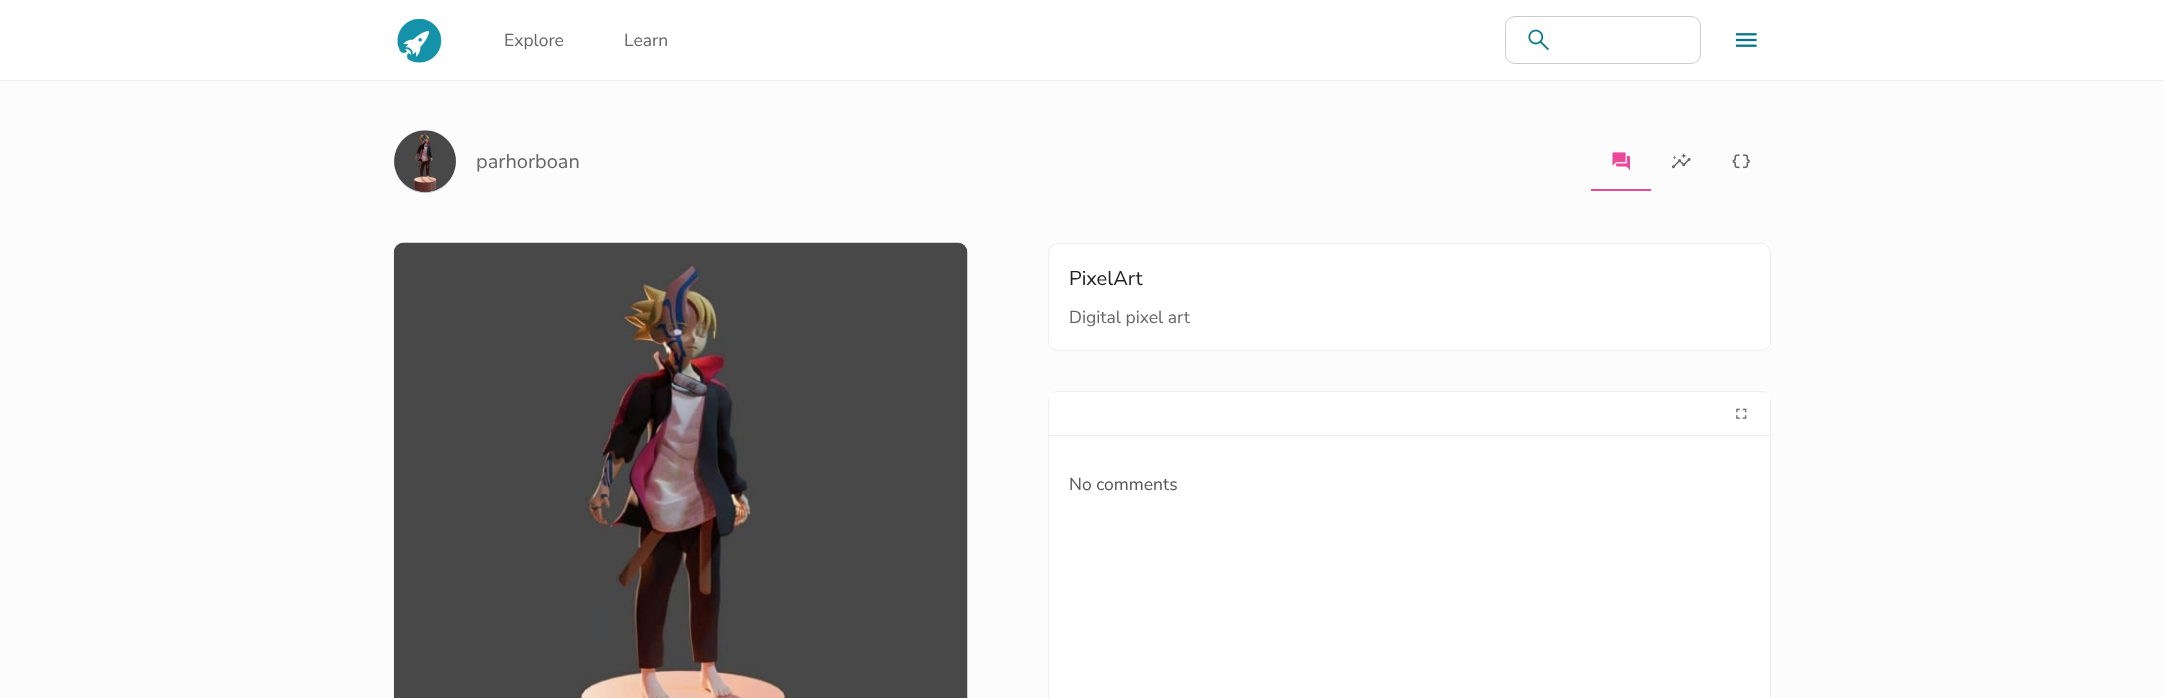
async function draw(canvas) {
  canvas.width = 2164
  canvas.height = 698
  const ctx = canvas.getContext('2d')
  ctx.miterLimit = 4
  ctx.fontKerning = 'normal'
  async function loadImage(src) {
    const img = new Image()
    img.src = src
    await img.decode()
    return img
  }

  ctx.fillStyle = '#fcfcfc'
  ctx.fillRect(0, 0, 2164, 698)
  ctx.fillStyle = '#fff'
  ctx.fillRect(0, 0, 2164, 80)
  ctx.fillStyle = '#eee'
  ctx.fillRect(0, 80, 2164, 1)
  ctx.drawImage(await loadImage('image0.png'), 397, 18, 45, 45)
  ctx.font = '17.5px Nunito Sans'
  ctx.fillStyle = '#656565'
  ctx.fillText('Explore', 504, 46)
  ctx.fillText('Learn', 624, 46)
  ctx.drawImage(await loadImage('image1.png'), 1528, 29, 21, 22)
  ctx.beginPath()
  ctx.roundRect(1505.5, 16.5, 195, 47, 9.5)
  ctx.strokeStyle = '#ccc'
  ctx.stroke()
  ctx.drawImage(await loadImage('image2.png'), 1735, 33, 22, 14)
  ctx.fillStyle = '#bdbdbd'
  ctx.beginPath()
  ctx.roundRect(394, 130, 62, 63, 31)
  ctx.fill()
  ctx.drawImage(await loadImage('image3.png'), 393, 130, 64, 63)
  ctx.font = '20px Nunito Sans'
  ctx.fillStyle = '#656565'
  ctx.fillText('parhorboan', 476, 168)
  ctx.drawImage(await loadImage('image4.png'), 1612, 152, 18, 18)
  ctx.drawImage(await loadImage('image5.png'), 1672, 153, 19, 16)
  ctx.drawImage(await loadImage('image6.png'), 1732, 154, 18, 15)
  ctx.fillStyle = '#ec4899'
  ctx.fillRect(1591, 189, 60, 2)
  ctx.drawImage(await loadImage('image7.png'), 393, 242, 575, 456)
  ctx.fillStyle = '#fff'
  ctx.beginPath()
  ctx.roundRect(1048.5, 243.5, 722, 107, 9.5)
  ctx.fill()
  ctx.strokeStyle = '#eee'
  ctx.stroke()
  ctx.fillStyle = '#212121'
  ctx.fillText('PixelArt', 1069, 285)
  ctx.font = '17.5px Nunito Sans'
  ctx.fillStyle = '#656565'
  ctx.fillText('Digital pixel art', 1069, 323)
  ctx.fillStyle = '#fff'
  ctx.beginPath()
  ctx.roundRect(1048.5, 391.5, 722, 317, 9.5)
  ctx.fill()
  ctx.stroke()
  ctx.fillRect(1049, 393, 721, 7)
  ctx.fillStyle = '#eee'
  ctx.fillRect(1049, 435, 721, 1)
  ctx.drawImage(await loadImage('image8.png'), 1736, 408, 11, 11)
  ctx.fillStyle = '#545454'
  ctx.fillText('No comments', 1069, 490)
}

draw(document.querySelector('canvas'))
